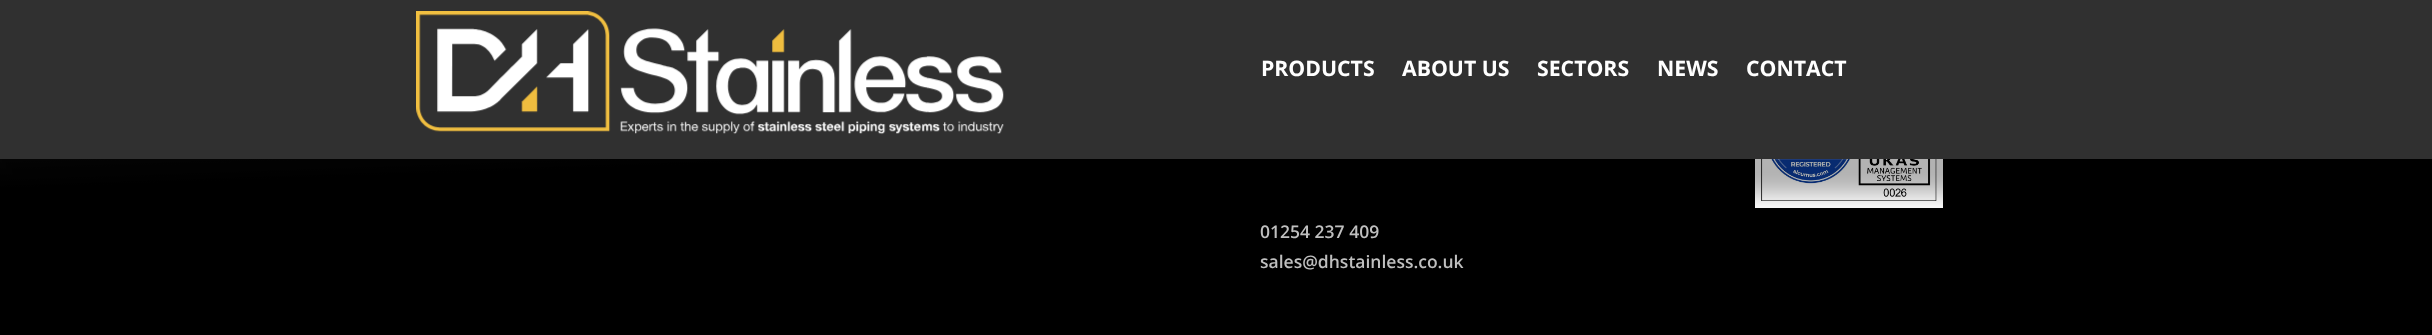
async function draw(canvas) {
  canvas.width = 2432
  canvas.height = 335
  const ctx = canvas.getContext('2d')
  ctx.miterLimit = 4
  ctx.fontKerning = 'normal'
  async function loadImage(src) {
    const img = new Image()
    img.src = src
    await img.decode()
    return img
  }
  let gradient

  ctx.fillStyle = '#fff'
  ctx.fillRect(0, 0, 2432, 335)
  gradient = ctx.createLinearGradient(1205, -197, 1227, 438)
  gradient.addColorStop(0.13, '#000')
  gradient.addColorStop(0.32, '#000000e6')
  gradient.addColorStop(0.55, '#000')
  ctx.fillStyle = gradient
  ctx.fillRect(0, 159, 2432, 176)
  ctx.fillStyle = '#fff'
  ctx.fillRect(1755, 159, 188, 49)
  ctx.drawImage(await loadImage('image1.png'), 1761, 159, 176, 42)
  ctx.fillStyle = '#0000004d'
  ctx.filter = 'blur(11px)'
  ctx.beginPath()
  ctx.rect(1, 38, 2430, 156)
  ctx.fill()
  ctx.filter = 'none'
  ctx.fillStyle = '#303030'
  ctx.fillRect(0, 0, 2432, 159)
  ctx.drawImage(await loadImage('image0.png'), 416, 11, 588, 124)
  ctx.font = 'bold 21.25px Open Sans'
  ctx.fillStyle = '#fff'
  ctx.fillText('PRODUCTS', 1261, 76)
  ctx.fillText('ABOUT US', 1402, 76)
  ctx.fillText('SECTORS', 1537, 76)
  ctx.fillText('NEWS', 1657, 76)
  ctx.fillText('CONTACT', 1746, 76)
  ctx.font = '600 17.5px Open Sans'
  ctx.fillStyle = '#bfbfbf'
  ctx.fillText('01254 237 409', 1260, 238)
  ctx.fillText('sales@dhstainless.co.uk', 1260, 268)
}

draw(document.querySelector('canvas'))
